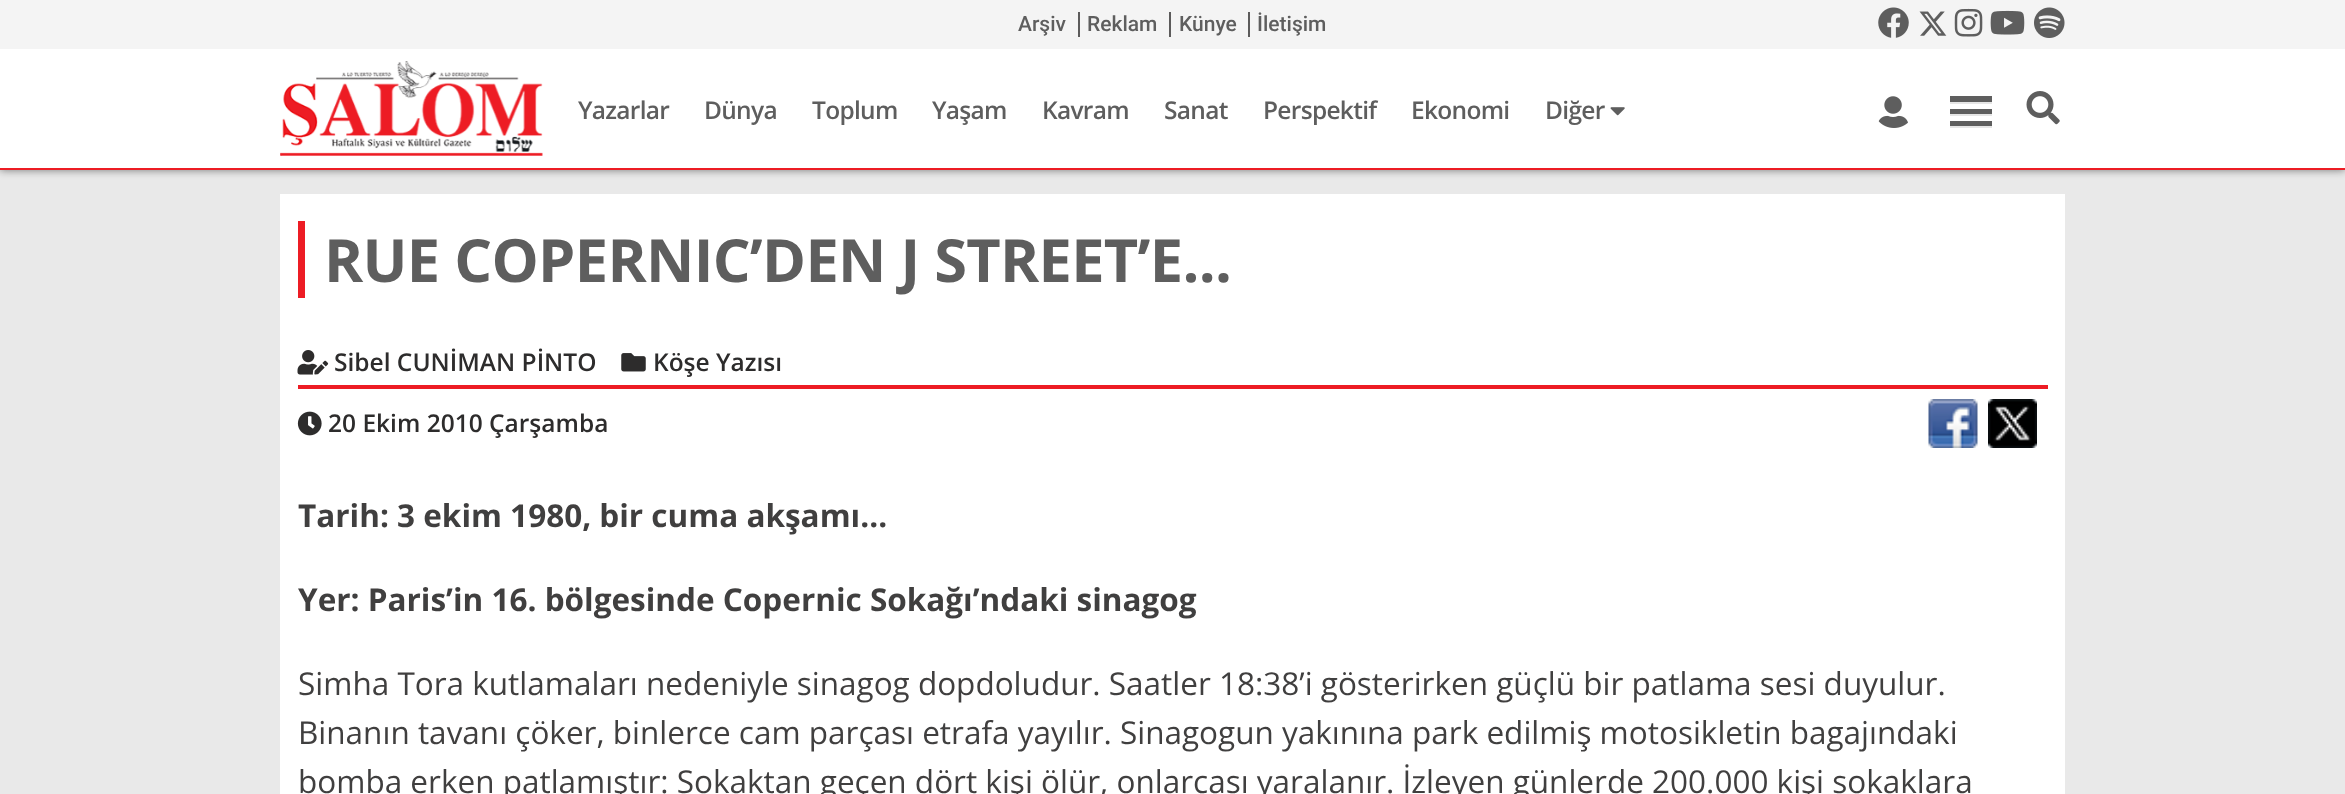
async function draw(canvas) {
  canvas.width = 2345
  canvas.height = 794
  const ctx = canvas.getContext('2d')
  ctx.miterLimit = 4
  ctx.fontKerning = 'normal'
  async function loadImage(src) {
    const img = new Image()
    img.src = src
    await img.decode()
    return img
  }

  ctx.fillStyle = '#e9e9e9'
  ctx.fillRect(0, 0, 2345, 794)
  ctx.fillStyle = '#00000080'
  ctx.filter = 'blur(4.5px)'
  ctx.beginPath()
  ctx.rect(0, 49, 2345, 121)
  ctx.fill()
  ctx.filter = 'none'
  ctx.fillStyle = '#f4f4f4'
  ctx.fillRect(0, 0, 2345, 49)
  ctx.font = '500 21px Roboto'
  ctx.fillStyle = '#5e5e5e'
  ctx.fillText('Arşiv', 1018, 31)
  ctx.fillText('Reklam', 1087, 31)
  ctx.fillStyle = '#5c5b5b'
  ctx.fillRect(1078, 12, 2, 25)
  ctx.fillStyle = '#5e5e5e'
  ctx.fillText('Künye', 1179, 31)
  ctx.fillStyle = '#5c5b5b'
  ctx.fillRect(1169, 12, 2, 25)
  ctx.fillStyle = '#5e5e5e'
  ctx.fillText('İletişim', 1257, 31)
  ctx.fillStyle = '#5c5b5b'
  ctx.fillRect(1248, 12, 2, 25)
  ctx.drawImage(await loadImage('image0.png'), 1878, 7, 31, 31)
  ctx.drawImage(await loadImage('image1.png'), 1919, 11, 28, 25)
  ctx.drawImage(await loadImage('image2.png'), 1954, 8, 29, 29)
  ctx.drawImage(await loadImage('image3.png'), 1990, 10, 35, 25)
  ctx.drawImage(await loadImage('image4.png'), 2034, 7, 31, 31)
  ctx.fillStyle = '#fff'
  ctx.fillRect(0, 49, 2345, 119)
  ctx.fillStyle = '#ed1c24'
  ctx.fillRect(0, 168, 2345, 2)
  ctx.drawImage(await loadImage('image5.png'), 280, 61, 263, 95)
  ctx.letterSpacing = '-0.7px'
  ctx.font = '600 24.5px Open Sans'
  ctx.fillStyle = '#5e5e5e'
  ctx.fillText('Yazarlar', 578, 119)
  ctx.fillText('Dünya', 704, 119)
  ctx.fillText('Toplum', 812, 119)
  ctx.fillText('Yaşam', 932, 119)
  ctx.fillText('Kavram', 1042, 119)
  ctx.fillText('Sanat', 1164, 119)
  ctx.fillText('Perspektif', 1263, 119)
  ctx.fillText('Ekonomi', 1411, 119)
  ctx.fillText('Diğer', 1545, 119)
  ctx.drawImage(await loadImage('image6.png'), 1610, 107, 15, 9)
  ctx.drawImage(await loadImage('image7.png'), 1878, 96, 30, 32)
  ctx.fillRect(1950, 96, 42, 6)
  ctx.fillStyle = '#e5e5e5'
  ctx.fillRect(1950, 102, 42, 2)
  ctx.fillStyle = '#5e5e5e'
  ctx.fillRect(1950, 109, 42, 5)
  ctx.fillStyle = '#e5e5e5'
  ctx.fillRect(1950, 114, 42, 2)
  ctx.fillStyle = '#5e5e5e'
  ctx.fillRect(1950, 121, 42, 5)
  ctx.fillStyle = '#e5e5e5'
  ctx.fillRect(1950, 126, 42, 2)
  ctx.drawImage(await loadImage('image8.png'), 2026, 91, 34, 34)
  ctx.fillStyle = '#fff'
  ctx.fillRect(280, 194, 1785, 600)
  ctx.fillStyle = '#ed1c24'
  ctx.fillRect(298, 221, 7, 77)
  ctx.font = 'bold 59.5px Open Sans'
  ctx.fillStyle = '#5e5e5e'
  ctx.fillText('RUE COPERNIC’DEN J STREET’E...', 324, 282)
  ctx.fillStyle = '#ed1c24'
  ctx.fillRect(298, 385, 1750, 4)
  ctx.drawImage(await loadImage('image9.png'), 297, 350, 32, 25)
  ctx.letterSpacing = '0px'
  ctx.font = '600 24.5px Open Sans'
  ctx.fillStyle = '#2d2c2c'
  ctx.fillText('Sibel CUNİMAN PİNTO', 334, 371)
  ctx.drawImage(await loadImage('image10.png'), 621, 353, 25, 19)
  ctx.fillText('Köşe Yazısı', 653, 371)
  ctx.drawImage(await loadImage('image11.png'), 297, 411, 25, 25)
  ctx.fillText('20 Ekim 2010 Çarşamba', 328, 432)
  ctx.drawImage(await loadImage('image12.png'), 1928, 399, 50, 49)
  ctx.drawImage(await loadImage('image13.png'), 1988, 399, 49, 49)
  ctx.font = 'bold 31.5px Open Sans'
  ctx.fillStyle = '#403f3f'
  ctx.fillText('Tarih: 3 ekim 1980, bir cuma akşamı...', 298, 527)
  ctx.fillText('Yer: Paris’in 16. bölgesinde Copernic Sokağı’ndaki sinagog', 298, 611)
  ctx.font = '31.5px Open Sans'
  ctx.fillText('Simha Tora kutlamaları nedeniyle sinagog dopdoludur. Saatler 18:38’i gösterirken güçlü bir patlama sesi duyulur.', 298, 695)
  ctx.fillText('Binanın tavanı çöker, binlerce cam parçası etrafa yayılır. Sinagogun yakınına park edilmiş motosikletin bagajındaki', 298, 744)
  ctx.fillText('bomba erken patlamıştır: Sokaktan geçen dört kişi ölür, onlarcası yaralanır. İzleyen günlerde 200.000 kişi sokaklara', 298, 793)
}

draw(document.querySelector('canvas'))
